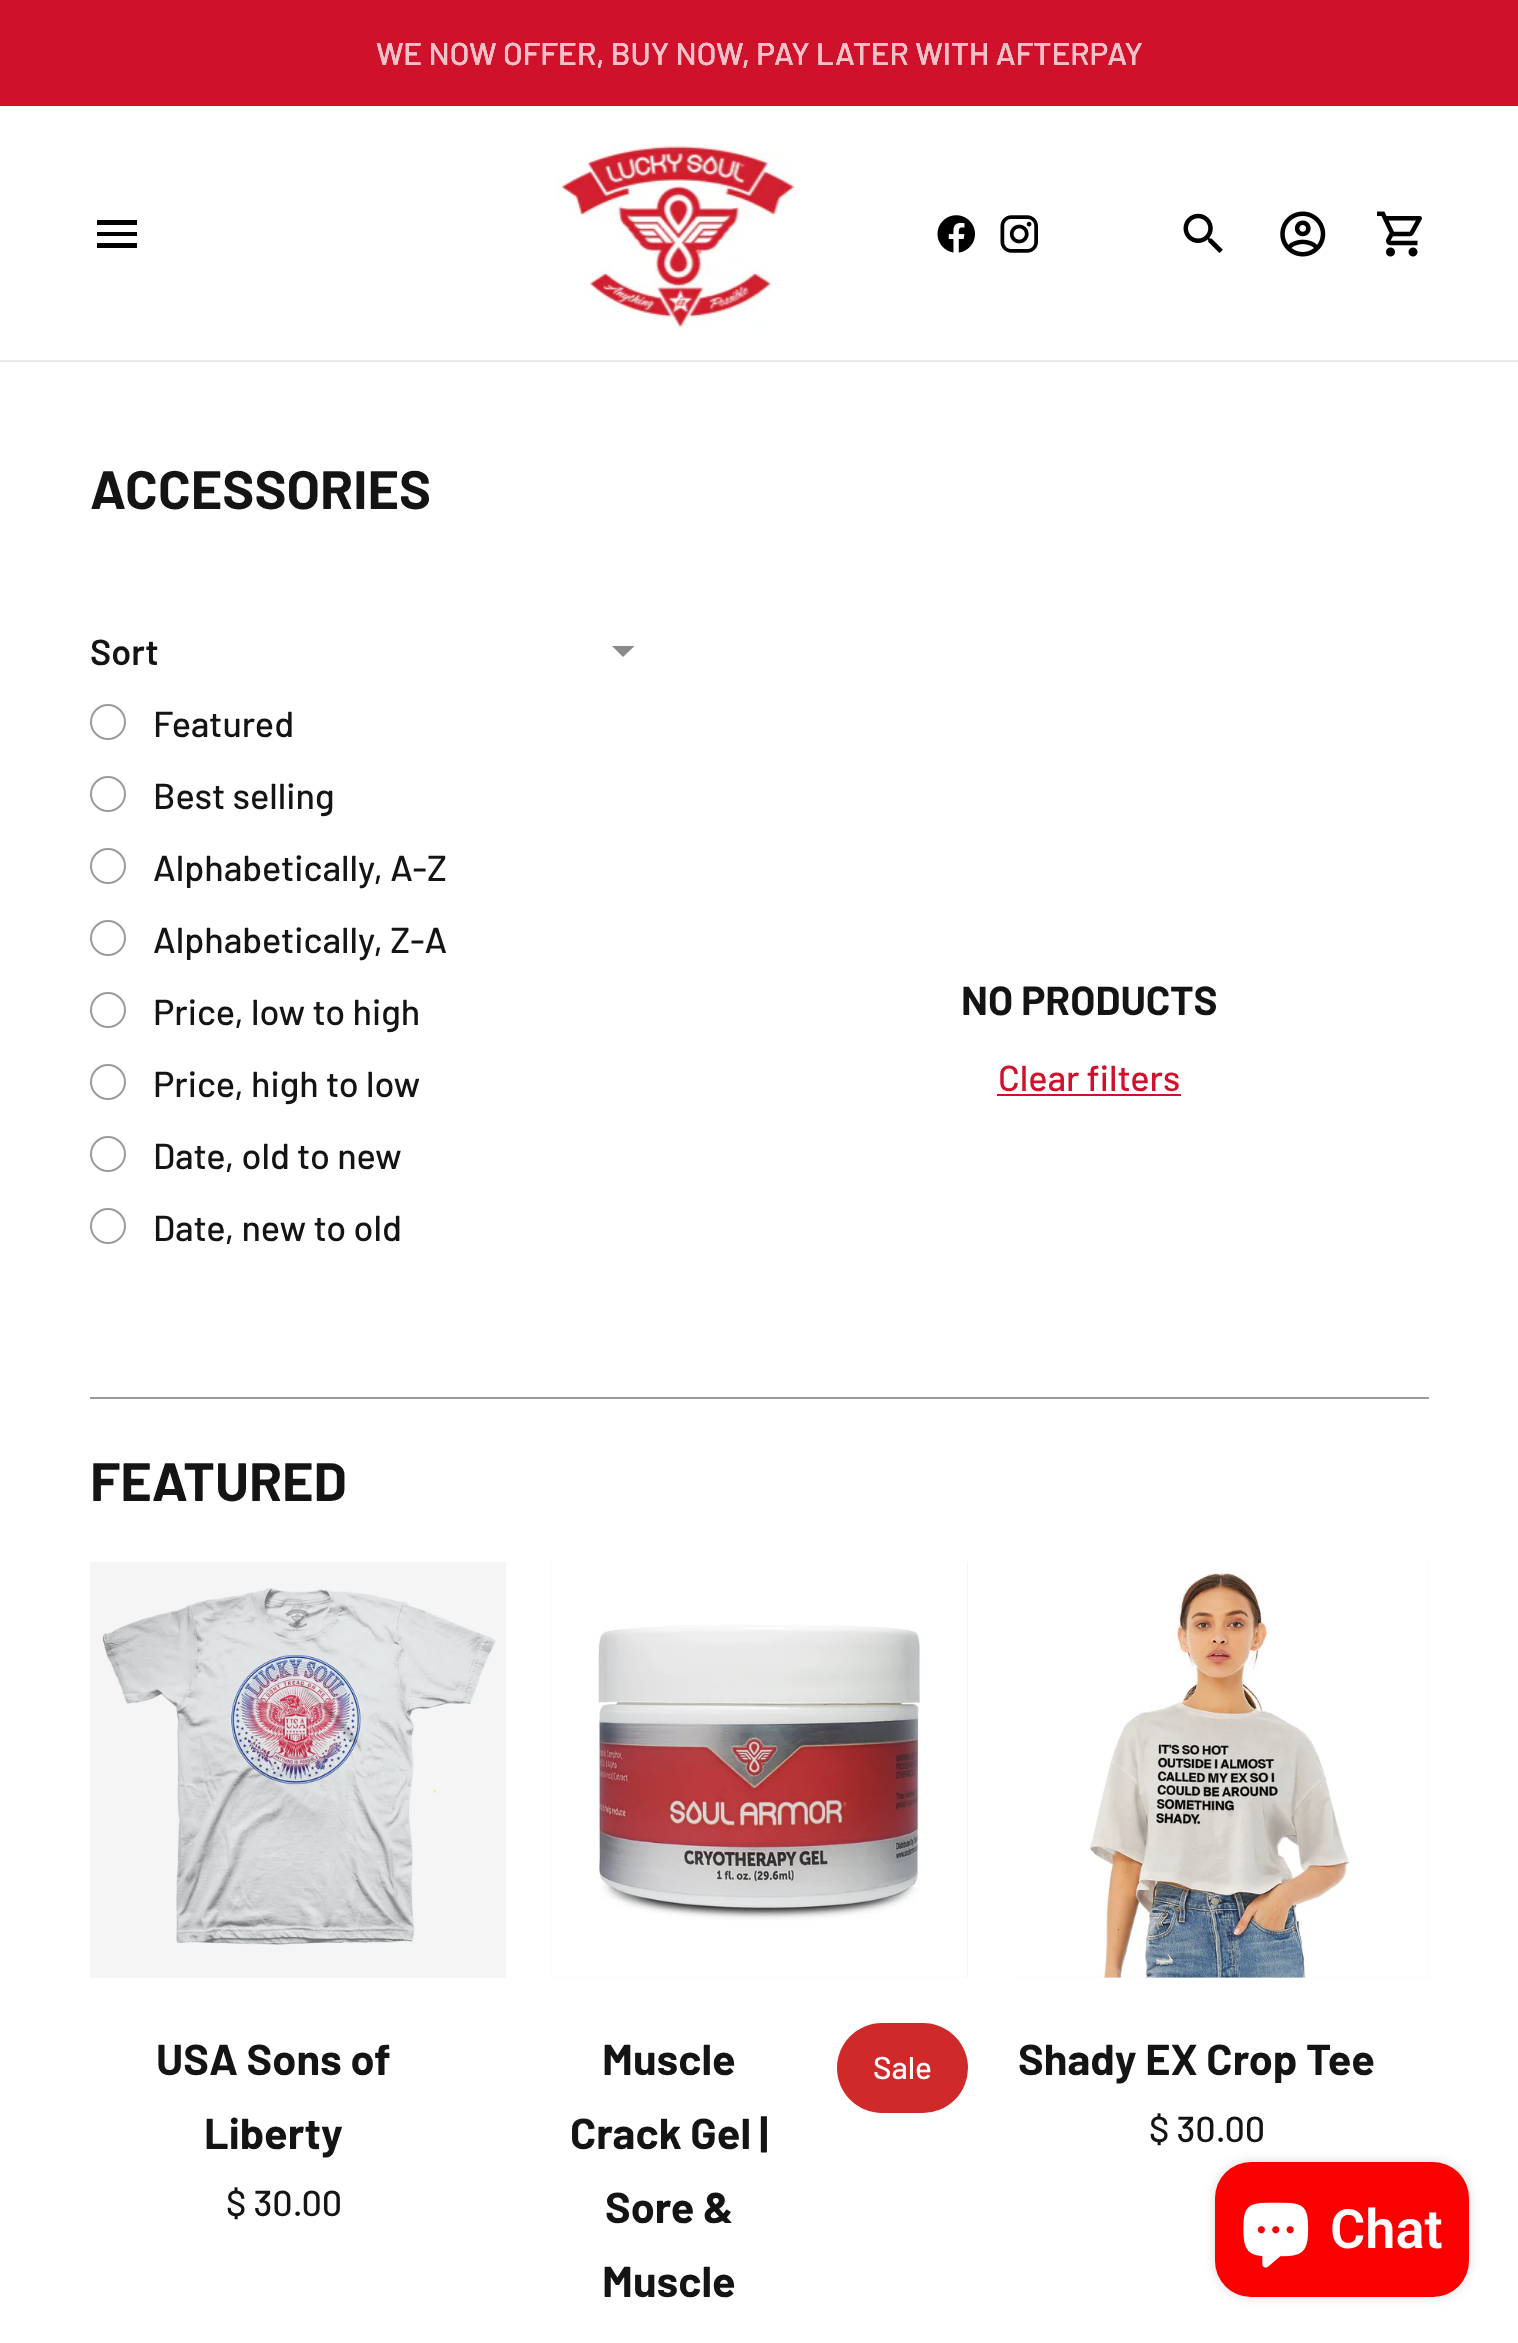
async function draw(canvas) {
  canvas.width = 1518
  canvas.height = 2343
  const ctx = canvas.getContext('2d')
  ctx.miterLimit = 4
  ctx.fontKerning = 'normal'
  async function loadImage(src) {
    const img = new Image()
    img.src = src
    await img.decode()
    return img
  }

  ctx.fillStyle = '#fff'
  ctx.fillRect(0, 0, 1518, 2343)
  ctx.fillStyle = '#d0112b'
  ctx.fillRect(0, 0, 1518, 106)
  ctx.font = '500 31.5px Barlow'
  ctx.fillStyle = '#fff'
  ctx.fillText('WE NOW OFFER, BUY NOW, PAY LATER WITH AFTERPAY', 376, 65)
  ctx.fillStyle = '#f3c0c7'
  ctx.fillText('WE NOW OFFER, BUY NOW, PAY LATER WITH AFTERPAY', 376, 65)
  ctx.fillStyle = '#eaeaea'
  ctx.fillRect(0, 360, 1518, 2)
  ctx.fillStyle = '#000'
  ctx.beginPath()
  ctx.moveTo(97, 248)
  ctx.lineTo(137, 248)
  ctx.lineTo(137, 243)
  ctx.lineTo(97, 243)
  ctx.closePath()
  ctx.moveTo(97, 236)
  ctx.lineTo(137, 236)
  ctx.lineTo(137, 232)
  ctx.lineTo(97, 232)
  ctx.closePath()
  ctx.moveTo(97, 220)
  ctx.lineTo(97, 225)
  ctx.lineTo(137, 225)
  ctx.lineTo(137, 220)
  ctx.closePath()
  ctx.fill()
  ctx.drawImage(await loadImage('image0.png'), 556, 144, 241, 185)
  ctx.drawImage(await loadImage('image1.png'), 937, 215, 38, 38)
  ctx.drawImage(await loadImage('image2.png'), 1000, 215, 38, 38)
  ctx.drawImage(await loadImage('image3.png'), 1183, 213, 40, 40)
  ctx.drawImage(await loadImage('image4.png'), 1280, 211, 46, 46)
  ctx.drawImage(await loadImage('image5.png'), 1377, 211, 45, 46)
  ctx.font = 'bold 54px Barlow'
  ctx.fillStyle = '#141414'
  ctx.fillText('ACCESSORIES', 90, 509)
  ctx.font = '600 36px Barlow'
  ctx.fillText('Sort', 90, 665)
  ctx.fillStyle = '#8a8a8a'
  ctx.beginPath()
  ctx.moveTo(612, 646)
  ctx.lineTo(623, 657)
  ctx.lineTo(634.5, 646)
  ctx.closePath()
  ctx.fill()
  ctx.beginPath()
  ctx.arc(108, 722, 17, 0, 2 * Math.PI)
  ctx.strokeStyle = '#9b9b9b'
  ctx.lineWidth = 2
  ctx.stroke()
  ctx.font = '500 36px Barlow'
  ctx.fillStyle = '#141414'
  ctx.fillText('Featured', 153, 737)
  ctx.beginPath()
  ctx.arc(108, 794, 17, 0, 2 * Math.PI)
  ctx.stroke()
  ctx.fillText('Best selling', 153, 809)
  ctx.beginPath()
  ctx.arc(108, 866, 17, 0, 2 * Math.PI)
  ctx.stroke()
  ctx.fillText('Alphabetically, A-Z', 153, 881)
  ctx.beginPath()
  ctx.arc(108, 938, 17, 0, 2 * Math.PI)
  ctx.stroke()
  ctx.fillText('Alphabetically, Z-A', 153, 953)
  ctx.beginPath()
  ctx.arc(108, 1010, 17, 0, 2 * Math.PI)
  ctx.stroke()
  ctx.fillText('Price, low to high', 153, 1025)
  ctx.beginPath()
  ctx.arc(108, 1082, 17, 0, 2 * Math.PI)
  ctx.stroke()
  ctx.fillText('Price, high to low', 153, 1097)
  ctx.beginPath()
  ctx.arc(108, 1154, 17, 0, 2 * Math.PI)
  ctx.stroke()
  ctx.fillText('Date, old to new', 153, 1169)
  ctx.beginPath()
  ctx.arc(108, 1226, 17, 0, 2 * Math.PI)
  ctx.stroke()
  ctx.fillText('Date, new to old', 153, 1241)
  ctx.font = 'bold 40.5px Barlow'
  ctx.fillText('NO PRODUCTS', 961, 1015)
  ctx.font = '500 36px Barlow'
  ctx.fillStyle = '#d0112b'
  ctx.fillText('Clear filters', 998, 1091)
  ctx.fillRect(997, 1094, 184, 2)
  ctx.fillStyle = '#9b9b9b'
  ctx.fillRect(90, 1397, 1339, 2)
  ctx.font = 'bold 54px Barlow'
  ctx.fillStyle = '#141414'
  ctx.fillText('FEATURED', 90, 1501)
  ctx.fillStyle = '#f5f5f5'
  ctx.fillRect(90, 1562, 416, 416)
  ctx.drawImage(await loadImage('image6.png'), 102, 1588, 394, 357)
  ctx.font = 'bold 43.25px Barlow'
  ctx.fillStyle = '#141414'
  ctx.fillText('USA Sons of', 156, 2075)
  ctx.fillText('Liberty', 204, 2149)
  ctx.font = '500 36px Barlow'
  ctx.fillText('$ 30.00', 226, 2216)
  ctx.fillStyle = '#f5f5f5'
  ctx.fillRect(551, 1562, 417, 416)
  ctx.drawImage(await loadImage('image7.png'), 551, 1562, 416, 416)
  ctx.font = 'bold 43.25px Barlow'
  ctx.fillStyle = '#141414'
  ctx.fillText('Muscle', 602, 2075)
  ctx.fillText('Crack Gel |', 570, 2149)
  ctx.fillText('Sore &', 605, 2223)
  ctx.fillText('Muscle', 602, 2297)
  ctx.fillStyle = '#cf2929'
  ctx.beginPath()
  ctx.roundRect(837, 2023, 131, 90, 45)
  ctx.fill()
  ctx.font = '500 31.5px Barlow'
  ctx.fillStyle = '#fff'
  ctx.fillText('Sale', 873, 2079)
  ctx.fillStyle = '#f5f5f5'
  ctx.fillRect(1013, 1562, 416, 416)
  ctx.drawImage(await loadImage('image8.png'), 1013, 1562, 416, 416)
  ctx.font = 'bold 43.25px Barlow'
  ctx.fillStyle = '#141414'
  ctx.fillText('Shady EX Crop Tee', 1018, 2075)
  ctx.font = '500 36px Barlow'
  ctx.fillText('$ 30.00', 1149, 2142)
  ctx.fillStyle = '#00000026'
  ctx.filter = 'blur(5.5px)'
  ctx.beginPath()
  ctx.roundRect(1215, 2162, 254, 135, 36)
  ctx.fill()
  ctx.filter = 'none'
  ctx.fillStyle = '#fa0000'
  ctx.beginPath()
  ctx.roundRect(1215, 2162, 254, 135, 36)
  ctx.fill()
  ctx.drawImage(await loadImage('image9.png'), 1243, 2202, 66, 66)
  ctx.font = '600 54px Roboto'
  ctx.fillStyle = '#fff'
  ctx.fillText('Chat', 1330, 2248)
}

draw(document.querySelector('canvas'))
